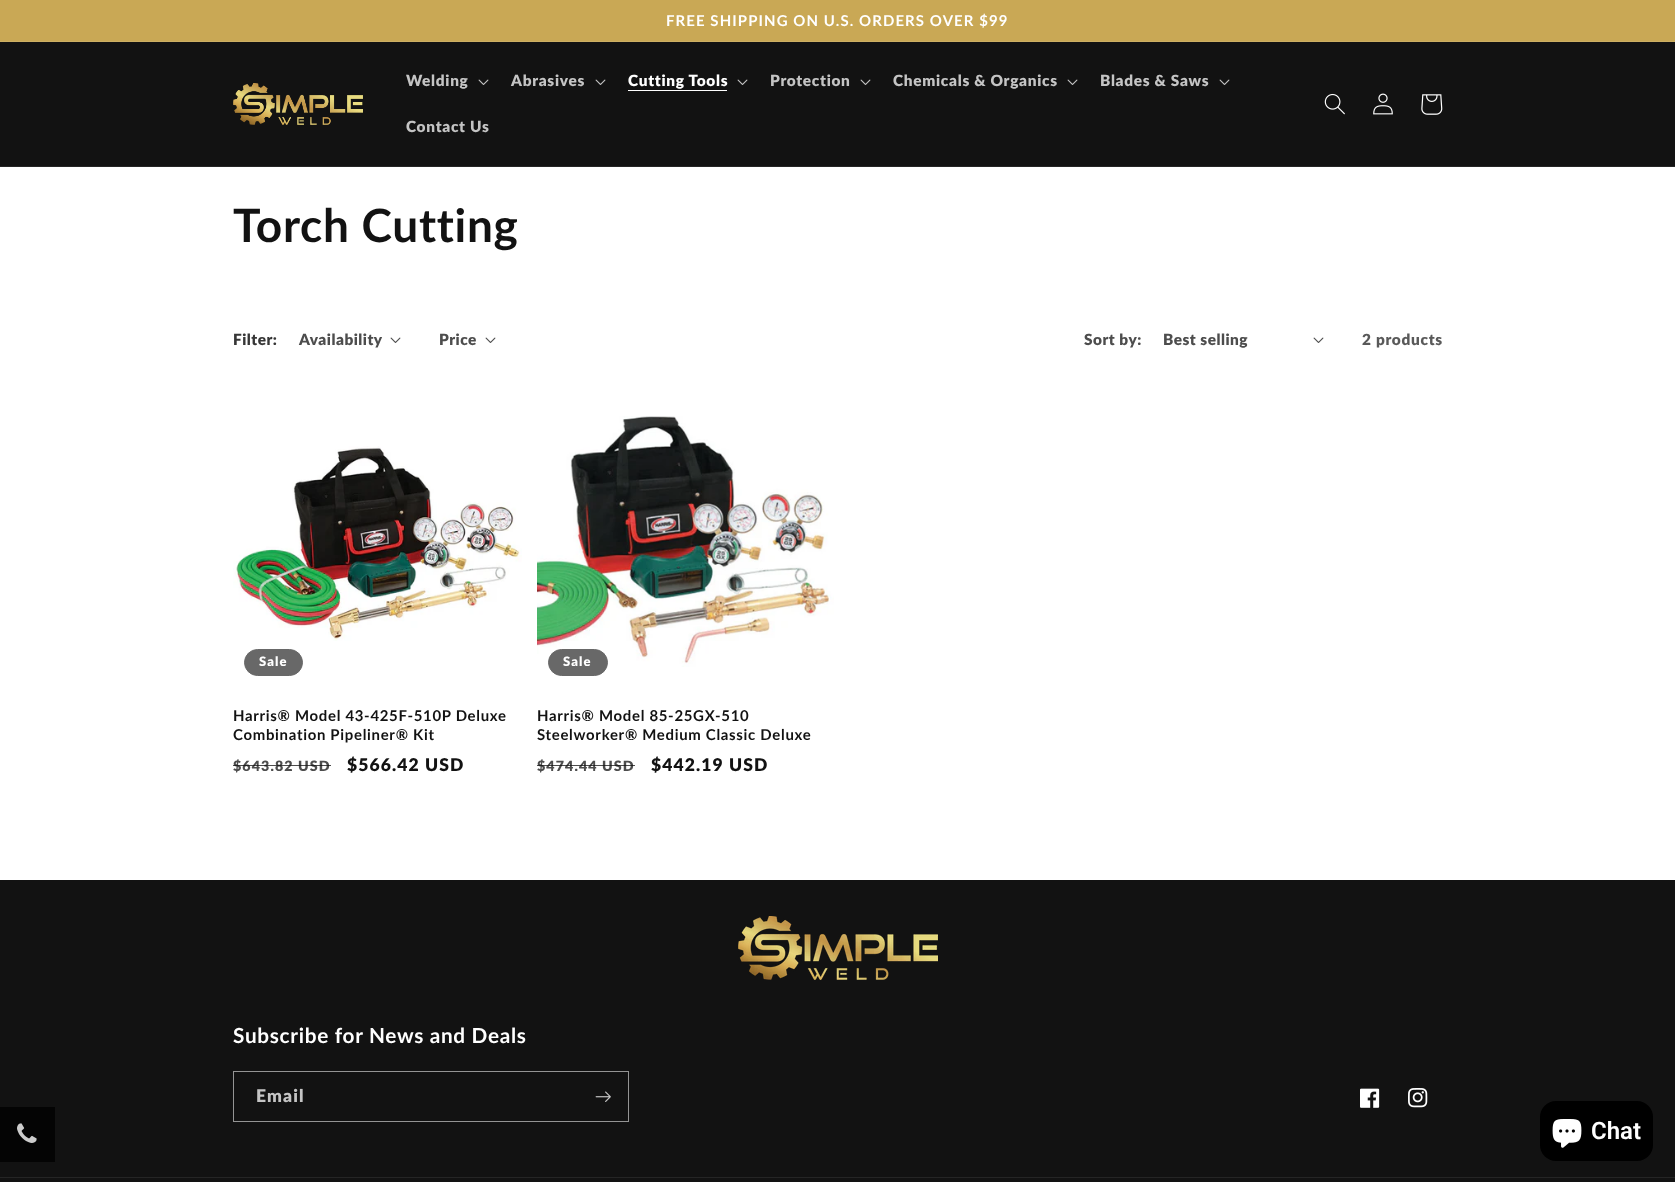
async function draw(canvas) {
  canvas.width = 1675
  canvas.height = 1182
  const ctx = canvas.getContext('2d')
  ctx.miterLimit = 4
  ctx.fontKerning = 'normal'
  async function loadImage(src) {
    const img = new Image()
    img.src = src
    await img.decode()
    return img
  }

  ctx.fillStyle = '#fff'
  ctx.fillRect(0, 0, 1675, 1182)
  ctx.fillStyle = '#c9a855'
  ctx.fillRect(0, 0, 1675, 41)
  ctx.fillStyle = '#cdaf63'
  ctx.fillRect(0, 41, 1675, 1)
  ctx.letterSpacing = '1.1px'
  ctx.font = 'bold 14.95px Lato'
  ctx.fillStyle = '#fff'
  ctx.fillText('FREE SHIPPING ON U.S. ORDERS OVER $99', 666, 26)
  ctx.fillStyle = '#121212'
  ctx.fillRect(0, 42, 1675, 124)
  ctx.fillStyle = '#252525'
  ctx.fillRect(0, 166, 1675, 1)
  ctx.drawImage(await loadImage('image0.png'), 233, 83, 130, 42)
  ctx.letterSpacing = '0.7px'
  ctx.font = '800 15.4px Lato'
  ctx.fillStyle = '#c4c4c4'
  ctx.fillText('Welding', 406, 86)
  ctx.drawImage(await loadImage('image1.png'), 478, 79, 11, 6)
  ctx.fillText('Abrasives', 511, 86)
  ctx.drawImage(await loadImage('image1.png'), 595, 79, 11, 6)
  ctx.fillStyle = '#fff'
  ctx.fillText('Cutting Tools', 628, 86)
  ctx.fillRect(628, 90, 99, 1)
  ctx.drawImage(await loadImage('image1.png'), 737, 79, 11, 6)
  ctx.fillStyle = '#c4c4c4'
  ctx.fillText('Protection', 770, 86)
  ctx.drawImage(await loadImage('image1.png'), 860, 79, 11, 6)
  ctx.fillText('Chemicals & Organics', 893, 86)
  ctx.drawImage(await loadImage('image1.png'), 1067, 79, 11, 6)
  ctx.fillText('Blades & Saws', 1100, 86)
  ctx.drawImage(await loadImage('image1.png'), 1219, 79, 11, 6)
  ctx.fillText('Contact Us', 406, 132)
  ctx.drawImage(await loadImage('image2.png'), 1324, 93, 21, 22)
  ctx.drawImage(await loadImage('image3.png'), 1373, 93, 20, 22)
  ctx.drawImage(await loadImage('image4.png'), 1421, 94, 22, 21)
  ctx.font = 'bold 46px Lato'
  ctx.fillStyle = '#121212'
  ctx.fillText('Torch Cutting', 233, 242)
  ctx.letterSpacing = '0.5px'
  ctx.font = '800 15.4px Lato'
  ctx.fillStyle = '#363636'
  ctx.fillText('Filter:', 233, 345)
  ctx.fillStyle = '#4d4d4d'
  ctx.fillText('Availability', 299, 345)
  ctx.drawImage(await loadImage('image5.png'), 390, 337, 11, 6)
  ctx.fillText('Price', 439, 345)
  ctx.drawImage(await loadImage('image5.png'), 485, 337, 11, 6)
  ctx.fillText('Sort by:', 1084, 345)
  ctx.fillText('Best selling', 1163, 345)
  ctx.drawImage(await loadImage('image5.png'), 1313, 337, 11, 6)
  ctx.letterSpacing = '0.7px'
  ctx.fillStyle = '#595959'
  ctx.fillText('2 products', 1362, 345)
  ctx.drawImage(await loadImage('image6.png'), 233, 446, 289, 195)
  ctx.fillStyle = '#686868'
  ctx.beginPath()
  ctx.roundRect(244.5, 649.5, 58, 26, 13)
  ctx.fill()
  ctx.strokeStyle = '#686868'
  ctx.stroke()
  ctx.letterSpacing = '1.1px'
  ctx.font = '800 13px Lato'
  ctx.fillStyle = '#fff'
  ctx.fillText('Sale', 259, 666)
  ctx.letterSpacing = '0.7px'
  ctx.font = 'bold 14.95px Lato'
  ctx.fillStyle = '#121212'
  ctx.fillText('Harris® Model 43-425F-510P Deluxe', 233, 721)
  ctx.fillText('Combination Pipeliner® Kit', 233, 740)
  ctx.letterSpacing = '1.1px'
  ctx.font = '800 14.25px Lato'
  ctx.fillStyle = '#4d4d4d'
  ctx.fillText('$643.82 USD', 233, 771)
  ctx.fillStyle = '#121212bf'
  ctx.fillRect(233, 765, 98, 1)
  ctx.font = '800 17.5px Lato'
  ctx.fillStyle = '#121212'
  ctx.fillText('$566.42 USD', 347, 771)
  ctx.drawImage(await loadImage('image7.png'), 537, 416, 297, 251)
  ctx.fillStyle = '#686868'
  ctx.beginPath()
  ctx.roundRect(548.5, 649.5, 59, 26, 13)
  ctx.fill()
  ctx.stroke()
  ctx.font = '800 13px Lato'
  ctx.fillStyle = '#fff'
  ctx.fillText('Sale', 563, 666)
  ctx.letterSpacing = '0.7px'
  ctx.font = 'bold 14.95px Lato'
  ctx.fillStyle = '#121212'
  ctx.fillText('Harris® Model 85-25GX-510', 537, 721)
  ctx.fillText('Steelworker® Medium Classic Deluxe', 537, 740)
  ctx.letterSpacing = '1.1px'
  ctx.font = '800 14.25px Lato'
  ctx.fillStyle = '#4d4d4d'
  ctx.fillText('$474.44 USD', 537, 771)
  ctx.fillStyle = '#121212bf'
  ctx.fillRect(537, 765, 98, 1)
  ctx.font = '800 17.5px Lato'
  ctx.fillStyle = '#121212'
  ctx.fillText('$442.19 USD', 651, 771)
  ctx.fillRect(0, 880, 1675, 302)
  ctx.drawImage(await loadImage('image8.png'), 738, 916, 200, 64)
  ctx.letterSpacing = '0.7px'
  ctx.font = 'bold 20.75px Lato'
  ctx.fillStyle = '#fff'
  ctx.fillText('Subscribe for News and Deals', 233, 1043)
  ctx.strokeStyle = '#949494'
  ctx.strokeRect(233.5, 1071.5, 395, 50)
  ctx.letterSpacing = '1.1px'
  ctx.font = '800 17.5px Lato'
  ctx.fillStyle = '#c4c4c4'
  ctx.fillText('Email', 256, 1102)
  ctx.drawImage(await loadImage('image9.png'), 595, 1091, 16, 11)
  ctx.drawImage(await loadImage('image10.png'), 1360, 1088, 20, 20)
  ctx.drawImage(await loadImage('image11.png'), 1408, 1088, 20, 20)
  ctx.fillStyle = '#252525'
  ctx.fillRect(0, 1177, 1675, 1)
  ctx.fillStyle = '#040404'
  ctx.fillRect(0, 1107, 55, 55)
  ctx.drawImage(await loadImage('image12.png'), 17, 1123, 20, 20)
  ctx.fillStyle = '#000'
  ctx.beginPath()
  ctx.roundRect(1540, 1101, 113, 60, 16)
  ctx.fill()
  ctx.drawImage(await loadImage('image13.png'), 1552, 1119, 30, 29)
  ctx.letterSpacing = '0px'
  ctx.font = '600 24px Roboto'
  ctx.fillStyle = '#fff'
  ctx.fillText('Chat', 1591, 1139)
}

draw(document.querySelector('canvas'))
